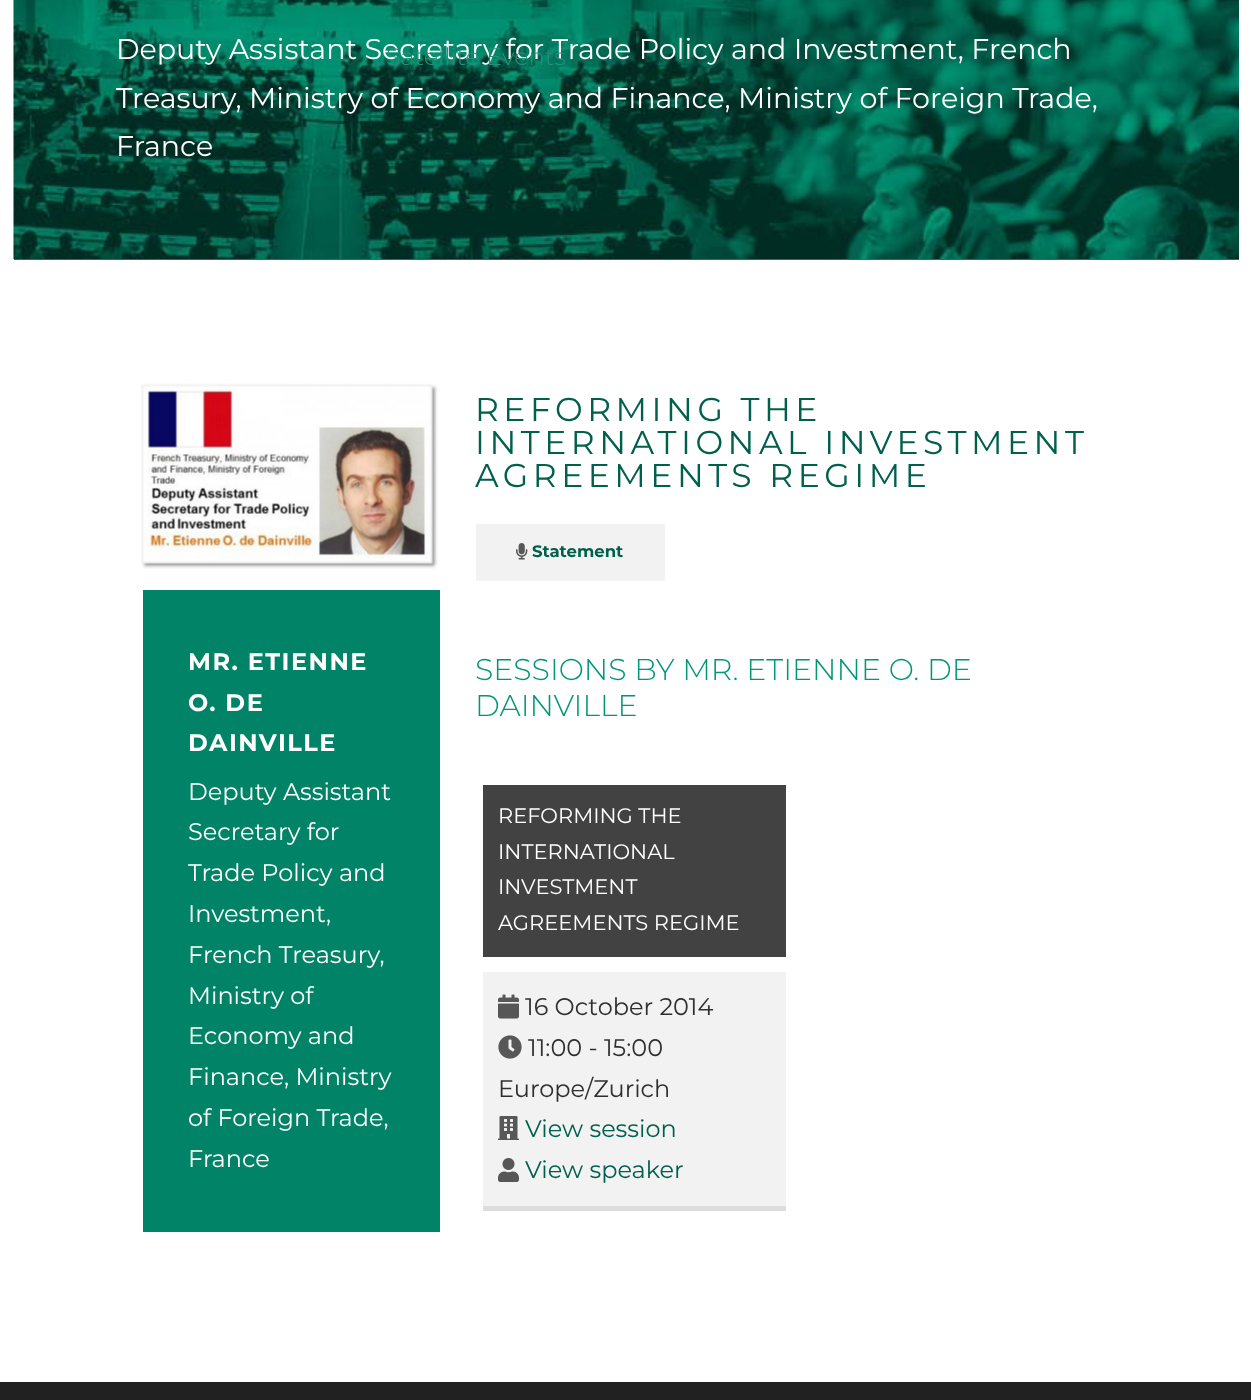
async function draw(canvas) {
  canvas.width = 1251
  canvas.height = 1400
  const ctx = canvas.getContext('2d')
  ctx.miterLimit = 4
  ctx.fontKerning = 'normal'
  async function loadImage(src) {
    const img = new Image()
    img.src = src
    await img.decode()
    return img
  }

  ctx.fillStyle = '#fff'
  ctx.fillRect(0, 0, 1251, 1400)
  ctx.fillStyle = '#018368'
  ctx.fillRect(14, 259, 1225, 1)
  ctx.drawImage(await loadImage('image0.png'), 13, 0, 1226, 259)
  ctx.font = '28.5px Montserrat'
  ctx.fillStyle = '#fff'
  ctx.fillText('Deputy Assistant Secretary for Trade Policy and Investment, French', 116, 59)
  ctx.fillText('Treasury, Ministry of Economy and Finance, Ministry of Foreign Trade,', 116, 108)
  ctx.fillText('France', 116, 156)
  ctx.drawImage(await loadImage('image1.png'), 140, 383, 298, 186)
  ctx.fillStyle = '#018368'
  ctx.fillRect(143, 590, 297, 642)
  ctx.letterSpacing = '1.5px'
  ctx.font = 'bold 24px Montserrat'
  ctx.fillStyle = '#fff'
  ctx.fillText('MR. ETIENNE', 188, 670)
  ctx.fillText('O. DE', 188, 711)
  ctx.fillText('DAINVILLE', 188, 751)
  ctx.letterSpacing = '0px'
  ctx.font = '24px Montserrat'
  ctx.fillText('Deputy Assistant', 188, 800)
  ctx.fillText('Secretary for', 188, 840)
  ctx.fillText('Trade Policy and', 188, 881)
  ctx.fillText('Investment,', 188, 922)
  ctx.fillText('French Treasury,', 188, 963)
  ctx.fillText('Ministry of', 188, 1004)
  ctx.fillText('Economy and', 188, 1044)
  ctx.fillText('Finance, Ministry', 188, 1085)
  ctx.fillText('of Foreign Trade,', 188, 1126)
  ctx.fillText('France', 188, 1167)
  ctx.letterSpacing = '4.5px'
  ctx.font = '33px Montserrat'
  ctx.fillStyle = '#00604c'
  ctx.fillText('REFORMING THE', 475, 421)
  ctx.fillText('INTERNATIONAL INVESTMENT', 475, 454)
  ctx.fillText('AGREEMENTS REGIME', 475, 487)
  ctx.fillStyle = '#f2f2f2'
  ctx.fillRect(476, 524, 189, 57)
  ctx.drawImage(await loadImage('image2.png'), 516, 543, 12, 17)
  ctx.letterSpacing = '0px'
  ctx.font = 'bold 16.5px Montserrat'
  ctx.fillStyle = '#00604c'
  ctx.fillText('Statement', 532, 557)
  ctx.font = '100 30px Montserrat'
  ctx.fillStyle = '#009777'
  ctx.fillText('SESSIONS BY MR. ETIENNE O. DE', 475, 680)
  ctx.fillText('DAINVILLE', 475, 716)
  ctx.fillStyle = '#424242'
  ctx.fillRect(483, 785, 303, 172)
  ctx.font = '21px Montserrat'
  ctx.fillStyle = '#fff'
  ctx.fillText('REFORMING THE', 498, 823)
  ctx.fillText('INTERNATIONAL', 498, 859)
  ctx.fillText('INVESTMENT', 498, 894)
  ctx.fillText('AGREEMENTS REGIME', 498, 930)
  ctx.fillStyle = '#f2f2f2'
  ctx.fillRect(483, 972, 303, 234)
  ctx.fillStyle = '#ddd'
  ctx.fillRect(483, 1206, 303, 5)
  ctx.drawImage(await loadImage('image3.png'), 498, 994, 21, 25)
  ctx.font = '24px Montserrat'
  ctx.fillStyle = '#2f2f2f'
  ctx.fillText('16 October 2014', 525, 1015)
  ctx.drawImage(await loadImage('image4.png'), 498, 1035, 24, 24)
  ctx.fillText('11:00 - 15:00', 528, 1056)
  ctx.fillText('Europe/Zurich', 498, 1097)
  ctx.drawImage(await loadImage('image5.png'), 498, 1116, 21, 24)
  ctx.fillStyle = '#00604c'
  ctx.fillText('View session', 525, 1137)
  ctx.drawImage(await loadImage('image6.png'), 498, 1158, 21, 24)
  ctx.fillText('View speaker', 525, 1178)
  ctx.font = '100 24px Montserrat'
  ctx.fillStyle = '#2b8d77'
  ctx.fillText('Satellite Events', 386, 65)
  ctx.fillStyle = '#212121'
  ctx.fillRect(0, 1382, 1251, 18)
}

draw(document.querySelector('canvas'))
